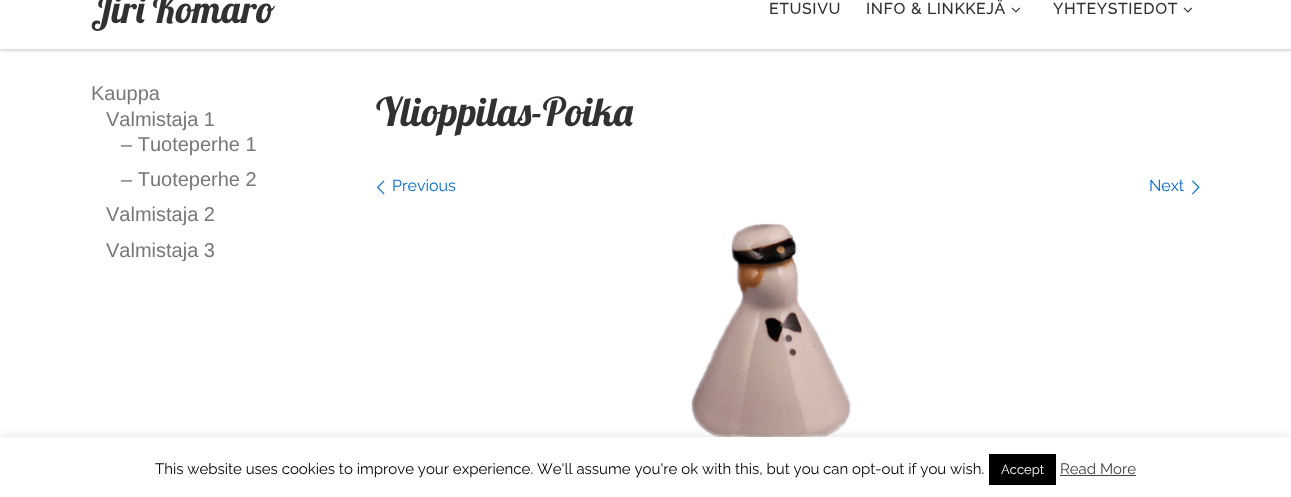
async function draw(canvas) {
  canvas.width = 1291
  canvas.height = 497
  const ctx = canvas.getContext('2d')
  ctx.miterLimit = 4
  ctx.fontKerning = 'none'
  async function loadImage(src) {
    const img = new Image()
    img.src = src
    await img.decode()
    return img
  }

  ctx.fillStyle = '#fff'
  ctx.fillRect(0, 0, 1291, 497)
  ctx.save()
  ctx.beginPath()
  ctx.rect(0, 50, 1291, 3)
  ctx.clip()
  ctx.fillStyle = '#66666614'
  ctx.filter = 'blur(1px)'
  ctx.beginPath()
  ctx.rect(0, -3, 1291, 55)
  ctx.fill()
  ctx.filter = 'none'
  ctx.restore()
  ctx.fillStyle = '#efefef'
  ctx.fillRect(0, 49, 1291, 1)
  ctx.save()
  ctx.beginPath()
  ctx.rect(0, 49, 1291, 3)
  ctx.clip()
  ctx.fillStyle = '#00000033'
  ctx.filter = 'blur(2.5px)'
  ctx.beginPath()
  ctx.rect(0, -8, 1291, 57)
  ctx.fill()
  ctx.filter = 'none'
  ctx.restore()
  ctx.save()
  ctx.beginPath()
  ctx.rect(91, 0, 184, 49)
  ctx.clip()
  ctx.font = '38.5px Lobster'
  ctx.fillStyle = '#303133'
  ctx.fillText('Jiri Komaro', 91, 23)
  ctx.restore()
  ctx.letterSpacing = '1px'
  ctx.font = 'bold 15.25px Raleway'
  ctx.fillStyle = '#303133'
  ctx.fillText('ETUSIVU', 769, 14)
  ctx.fillText('INFO & LINKKEJÄ', 866, 14)
  ctx.drawImage(await loadImage('image0.png'), 1011, 7, 10, 6)
  ctx.fillText('YHTEYSTIEDOT', 1053, 14)
  ctx.drawImage(await loadImage('image0.png'), 1183, 7, 10, 6)
  ctx.letterSpacing = '0px'
  ctx.font = '20px Liberation Sans'
  ctx.fillStyle = '#777'
  ctx.fillText('Kauppa', 91, 100)
  ctx.fillText('Valmistaja 1', 106, 126)
  ctx.fillText('– Tuoteperhe 1', 121, 151)
  ctx.fillText('– Tuoteperhe 2', 121, 186)
  ctx.fillText('Valmistaja 2', 106, 221)
  ctx.fillText('Valmistaja 3', 106, 257)
  ctx.font = '39.75px Lobster'
  ctx.fillStyle = '#303133'
  ctx.fillText('Ylioppilas-Poika', 376, 126)
  ctx.drawImage(await loadImage('image1.png'), 377, 180, 8, 15)
  ctx.font = '100 16px Raleway'
  ctx.fillStyle = '#0069cc'
  ctx.fillText('Previous', 392, 191)
  ctx.fillText('Next', 1149, 191)
  ctx.drawImage(await loadImage('image2.png'), 1192, 180, 8, 15)
  ctx.drawImage(await loadImage('image3.png'), 691, 223, 160, 214)
  ctx.fillStyle = '#acabab4d'
  ctx.filter = 'blur(5px)'
  ctx.beginPath()
  ctx.rect(0, 436, 1291, 60)
  ctx.fill()
  ctx.filter = 'none'
  ctx.fillStyle = '#fff'
  ctx.fillRect(0, 437, 1291, 60)
  ctx.font = '100 15px Raleway'
  ctx.fillStyle = '#000'
  ctx.fillText('This website uses cookies to improve your experience.', 155, 474)
  ctx.fillText('We\'ll assume you\'re ok with this, but you', 537, 474)
  ctx.fillText('can opt-out if you wish.', 823, 474)
  ctx.fillRect(989, 454, 67, 31)
  ctx.font = '100 13px Raleway'
  ctx.fillStyle = '#fff'
  ctx.fillText('Accept', 1001, 474)
  ctx.font = '100 15px Raleway'
  ctx.fillStyle = '#444'
  ctx.fillText('Read More', 1060, 474)
  ctx.fillRect(1060, 475, 76, 1)
}

draw(document.querySelector('canvas'))
